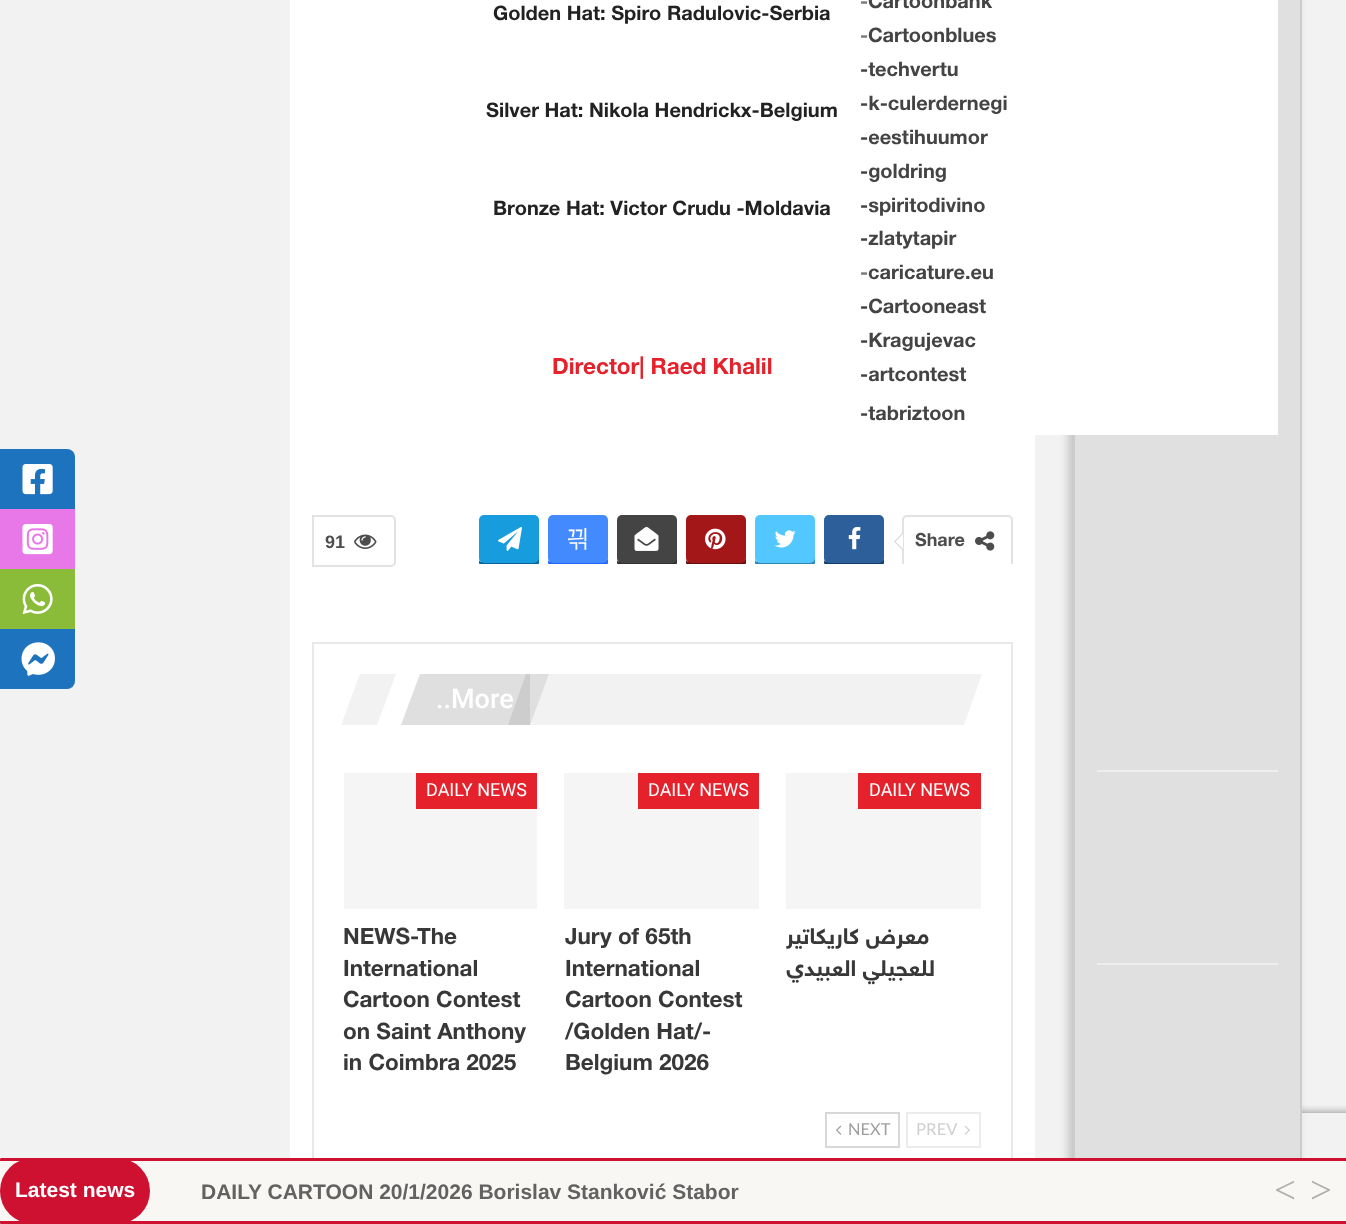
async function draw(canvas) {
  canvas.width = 1346
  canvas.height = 1224
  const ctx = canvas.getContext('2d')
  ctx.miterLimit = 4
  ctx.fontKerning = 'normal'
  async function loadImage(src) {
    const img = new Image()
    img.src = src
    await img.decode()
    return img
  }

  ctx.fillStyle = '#f2f2f2'
  ctx.fillRect(0, 0, 1346, 1224)
  ctx.fillStyle = '#1e73be'
  ctx.beginPath()
  ctx.roundRect(0, 449, 75, 60, [0, 8, 0, 0])
  ctx.fill()
  ctx.drawImage(await loadImage('image0.png'), 22, 464, 31, 31)
  ctx.fillStyle = '#e878e8'
  ctx.fillRect(0, 509, 75, 60)
  ctx.drawImage(await loadImage('image1.png'), 22, 524, 31, 31)
  ctx.fillStyle = '#8abc3a'
  ctx.fillRect(0, 569, 75, 60)
  ctx.drawImage(await loadImage('image2.png'), 22, 584, 31, 31)
  ctx.fillStyle = '#1e73be'
  ctx.beginPath()
  ctx.roundRect(0, 629, 75, 60, [0, 0, 8, 0])
  ctx.fill()
  ctx.drawImage(await loadImage('image3.png'), 21, 642, 34, 34)
  ctx.fillStyle = '#c6c4c4'
  ctx.filter = 'blur(4px)'
  ctx.beginPath()
  ctx.rect(1068, -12, 230, 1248)
  ctx.fill()
  ctx.filter = 'none'
  ctx.save()
  ctx.beginPath()
  ctx.rect(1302, 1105, 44, 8)
  ctx.clip()
  ctx.fillStyle = '#808080'
  ctx.filter = 'blur(4px)'
  ctx.beginPath()
  ctx.roundRect(1242, 1113, 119, 90, 3)
  ctx.fill()
  ctx.filter = 'none'
  ctx.restore()
  ctx.fillStyle = '#e0e0e0'
  ctx.fillRect(1075, 0, 225, 1158)
  ctx.strokeStyle = '#ccc'
  ctx.lineWidth = 2
  ctx.strokeRect(1074, -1, 227, 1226)
  ctx.fillStyle = '#fff'
  ctx.fillRect(1035, 0, 243, 435)
  ctx.fillRect(290, 0, 745, 1158)
  ctx.font = 'bold 20px "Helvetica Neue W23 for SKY"'
  ctx.fillStyle = '#7b7b7b'
  ctx.fillText('-', 860, 8)
  ctx.fillStyle = '#444'
  ctx.fillText('Cartoonbank', 868, 8)
  ctx.fillStyle = '#7b7b7b'
  ctx.fillText('-', 860, 42)
  ctx.fillStyle = '#444'
  ctx.fillText('Cartoonblues', 868, 42)
  ctx.fillText('-techvertu', 860, 76)
  ctx.fillText('-k-culerdernegi', 860, 110)
  ctx.fillText('-eestihuumor', 860, 144)
  ctx.fillText('-goldring', 860, 178)
  ctx.fillText('-spiritodivino', 860, 212)
  ctx.fillText('-zlatytapir', 860, 245)
  ctx.fillStyle = '#7b7b7b'
  ctx.fillText('-', 860, 279)
  ctx.fillStyle = '#444'
  ctx.fillText('caricature.eu', 868, 279)
  ctx.fillText('-Cartooneast', 860, 313)
  ctx.fillText('-Kragujevac', 860, 347)
  ctx.fillText('-artcontest', 860, 381)
  ctx.fillText('-tabriztoon', 860, 420)
  ctx.fillStyle = '#eee'
  ctx.fillRect(1097, 770, 181, 2)
  ctx.fillRect(1097, 963, 181, 2)
  ctx.fillStyle = '#222'
  ctx.fillText('Golden Hat: Spiro Radulovic-Serbia', 493, 20)
  ctx.fillText('Silver Hat: Nikola Hendrickx-Belgium', 486, 117)
  ctx.fillText('Bronze Hat: Victor Crudu -Moldavia', 493, 215)
  ctx.font = 'bold 22.5px "Helvetica Neue W23 for SKY"'
  ctx.fillStyle = '#e5222c'
  ctx.fillText('Director| Raed Khalil', 552, 374)
  ctx.beginPath()
  ctx.roundRect(313, 516, 82, 50, [0, 4, 4, 0])
  ctx.strokeStyle = '#e2e2e2'
  ctx.stroke()
  ctx.font = 'bold 18px Liberation Sans'
  ctx.fillStyle = '#4d4d4d'
  ctx.fillText('91', 325, 548)
  ctx.drawImage(await loadImage('image4.png'), 354, 534, 23, 15)
  ctx.save()
  ctx.beginPath()
  ctx.rect(396, 515, 617, 49)
  ctx.clip()
  ctx.fillStyle = '#0a629a'
  ctx.beginPath()
  ctx.moveTo(479, 560)
  ctx.lineTo(479, 562)
  ctx.bezierCurveTo(479, 565, 481, 567, 484, 567)
  ctx.lineTo(534, 567)
  ctx.bezierCurveTo(537, 567, 539, 565, 539, 562)
  ctx.lineTo(539, 524)
  ctx.lineTo(538, 522)
  ctx.lineTo(538, 558)
  ctx.bezierCurveTo(538, 560, 536, 562, 534, 562)
  ctx.lineTo(483, 562)
  ctx.bezierCurveTo(481, 562, 480, 562, 479, 560)
  ctx.closePath()
  ctx.fill()
  ctx.restore()
  ctx.fillStyle = '#179cde'
  ctx.beginPath()
  ctx.roundRect(479, 515, 60, 48, 5)
  ctx.fill()
  ctx.drawImage(await loadImage('image5.png'), 498, 527, 24, 24)
  ctx.save()
  ctx.beginPath()
  ctx.rect(396, 515, 617, 49)
  ctx.clip()
  ctx.fillStyle = '#2464ff'
  ctx.beginPath()
  ctx.moveTo(548, 560)
  ctx.lineTo(548, 562)
  ctx.bezierCurveTo(548, 565, 550, 567, 553, 567)
  ctx.lineTo(603, 567)
  ctx.bezierCurveTo(606, 567, 608, 565, 608, 562)
  ctx.lineTo(608, 524)
  ctx.lineTo(608, 522)
  ctx.lineTo(608, 558)
  ctx.bezierCurveTo(608, 560, 605, 562, 603, 562)
  ctx.lineTo(552, 562)
  ctx.bezierCurveTo(550, 562, 549, 562, 548, 560)
  ctx.closePath()
  ctx.fill()
  ctx.restore()
  ctx.fillStyle = '#448aff'
  ctx.beginPath()
  ctx.roundRect(548, 515, 60, 48, 5)
  ctx.fill()
  ctx.font = '500 24px WenQuanYi Zen Hei'
  ctx.fillStyle = '#fff'
  ctx.fillText('끢', 566, 546)
  ctx.save()
  ctx.beginPath()
  ctx.rect(396, 515, 617, 49)
  ctx.clip()
  ctx.fillStyle = '#313131'
  ctx.beginPath()
  ctx.moveTo(617, 560)
  ctx.lineTo(617, 562)
  ctx.bezierCurveTo(617, 565, 619, 567, 622, 567)
  ctx.lineTo(672, 567)
  ctx.bezierCurveTo(675, 567, 677, 565, 677, 562)
  ctx.lineTo(677, 524)
  ctx.lineTo(676, 522)
  ctx.lineTo(676, 558)
  ctx.bezierCurveTo(676, 560, 674, 562, 672, 562)
  ctx.lineTo(621, 562)
  ctx.bezierCurveTo(619, 562, 618, 562, 617, 560)
  ctx.closePath()
  ctx.fill()
  ctx.restore()
  ctx.fillStyle = '#444'
  ctx.beginPath()
  ctx.roundRect(617, 515, 60, 48, 5)
  ctx.fill()
  ctx.drawImage(await loadImage('image6.png'), 634, 527, 25, 24)
  ctx.save()
  ctx.beginPath()
  ctx.rect(396, 515, 617, 49)
  ctx.clip()
  ctx.fillStyle = '#670d0e'
  ctx.beginPath()
  ctx.moveTo(686, 560)
  ctx.lineTo(686, 562)
  ctx.bezierCurveTo(686, 565, 688, 567, 691, 567)
  ctx.lineTo(741, 567)
  ctx.bezierCurveTo(744, 567, 746, 565, 746, 562)
  ctx.lineTo(746, 524)
  ctx.lineTo(746, 522)
  ctx.lineTo(746, 558)
  ctx.bezierCurveTo(746, 560, 743, 562, 741, 562)
  ctx.lineTo(690, 562)
  ctx.bezierCurveTo(688, 562, 687, 562, 686, 560)
  ctx.closePath()
  ctx.fill()
  ctx.restore()
  ctx.fillStyle = '#a41719'
  ctx.beginPath()
  ctx.roundRect(686, 515, 60, 48, 5)
  ctx.fill()
  ctx.drawImage(await loadImage('image7.png'), 705, 528, 21, 22)
  ctx.save()
  ctx.beginPath()
  ctx.rect(396, 515, 617, 49)
  ctx.clip()
  ctx.fillStyle = '#2e86b1'
  ctx.beginPath()
  ctx.moveTo(755, 560)
  ctx.lineTo(755, 562)
  ctx.bezierCurveTo(755, 565, 757, 567, 760, 567)
  ctx.lineTo(810, 567)
  ctx.bezierCurveTo(813, 567, 815, 565, 815, 562)
  ctx.lineTo(815, 524)
  ctx.lineTo(814, 522)
  ctx.lineTo(814, 558)
  ctx.bezierCurveTo(814, 560, 812, 562, 810, 562)
  ctx.lineTo(759, 562)
  ctx.bezierCurveTo(757, 562, 756, 562, 755, 560)
  ctx.closePath()
  ctx.fill()
  ctx.restore()
  ctx.fillStyle = '#53c7ff'
  ctx.beginPath()
  ctx.roundRect(755, 515, 60, 48, 5)
  ctx.fill()
  ctx.drawImage(await loadImage('image8.png'), 774, 530, 22, 18)
  ctx.save()
  ctx.beginPath()
  ctx.rect(396, 515, 617, 49)
  ctx.clip()
  ctx.fillStyle = '#133d6d'
  ctx.beginPath()
  ctx.moveTo(824, 560)
  ctx.lineTo(824, 562)
  ctx.bezierCurveTo(824, 565, 826, 567, 829, 567)
  ctx.lineTo(879, 567)
  ctx.bezierCurveTo(882, 567, 884, 565, 884, 562)
  ctx.lineTo(884, 524)
  ctx.lineTo(884, 522)
  ctx.lineTo(884, 558)
  ctx.bezierCurveTo(884, 560, 881, 562, 879, 562)
  ctx.lineTo(828, 562)
  ctx.bezierCurveTo(826, 562, 825, 562, 824, 560)
  ctx.closePath()
  ctx.fill()
  ctx.restore()
  ctx.fillStyle = '#2d5f9a'
  ctx.beginPath()
  ctx.roundRect(824, 515, 60, 48, 5)
  ctx.fill()
  ctx.drawImage(await loadImage('image9.png'), 848, 526, 13, 24)
  ctx.save()
  ctx.beginPath()
  ctx.rect(396, 515, 617, 49)
  ctx.clip()
  ctx.beginPath()
  ctx.roundRect(903, 516, 109, 50, 4)
  ctx.stroke()
  ctx.restore()
  ctx.fillStyle = '#d7d7d7'
  ctx.beginPath()
  ctx.moveTo(903, 532.5)
  ctx.lineTo(903, 550.5)
  ctx.lineTo(894, 541.5)
  ctx.closePath()
  ctx.fill()
  ctx.font = 'bold 18px "Helvetica Neue W23 for SKY"'
  ctx.fillStyle = '#4d4d4d'
  ctx.fillText('Share', 915, 546)
  ctx.drawImage(await loadImage('image10.png'), 975, 531, 20, 20)
  ctx.fillStyle = '#fff'
  ctx.beginPath()
  ctx.moveTo(903, 534)
  ctx.lineTo(903, 549)
  ctx.lineTo(895.5, 541.5)
  ctx.closePath()
  ctx.fill()
  ctx.strokeStyle = '#e8e8e8'
  ctx.strokeRect(313, 643, 699, 535)
  ctx.fillStyle = '#f2f2f2'
  ctx.beginPath()
  ctx.moveTo(360, 674)
  ctx.lineTo(982, 674)
  ctx.lineTo(964, 725)
  ctx.lineTo(341, 725)
  ctx.closePath()
  ctx.fill()
  ctx.fillStyle = '#dfdfdf'
  ctx.fillRect(401, 674, 129, 51)
  ctx.fillStyle = '#fff'
  ctx.beginPath()
  ctx.moveTo(396, 674)
  ctx.lineTo(420, 674)
  ctx.lineTo(401, 725)
  ctx.lineTo(377, 725)
  ctx.closePath()
  ctx.fill()
  ctx.font = '500 27px Roboto'
  ctx.fillText('..More', 436, 708)
  ctx.fillStyle = '#00000014'
  ctx.beginPath()
  ctx.moveTo(526, 674)
  ctx.lineTo(549, 674)
  ctx.lineTo(530, 725)
  ctx.lineTo(508, 725)
  ctx.closePath()
  ctx.fill()
  ctx.fillStyle = '#f5f5f5'
  ctx.fillRect(344, 773, 193, 136)
  ctx.fillStyle = '#e5222c'
  ctx.fillRect(416, 773, 121, 36)
  ctx.font = '18px Roboto'
  ctx.fillStyle = '#fff'
  ctx.fillText('DAILY NEWS', 426, 796)
  ctx.font = 'bold 22.5px "Helvetica Neue W23 for SKY"'
  ctx.fillStyle = '#383838'
  ctx.fillText('NEWS-The', 343, 944)
  ctx.fillText('International', 343, 976)
  ctx.fillText('Cartoon Contest', 343, 1007)
  ctx.fillText('on Saint Anthony', 343, 1039)
  ctx.fillText('in Coimbra 2025', 343, 1070)
  ctx.fillStyle = '#f5f5f5'
  ctx.fillRect(564, 773, 195, 136)
  ctx.fillStyle = '#e5222c'
  ctx.fillRect(638, 773, 121, 36)
  ctx.font = '18px Roboto'
  ctx.fillStyle = '#fff'
  ctx.fillText('DAILY NEWS', 648, 796)
  ctx.font = 'bold 22.5px "Helvetica Neue W23 for SKY"'
  ctx.fillStyle = '#383838'
  ctx.fillText('Jury of 65th', 565, 944)
  ctx.fillText('International', 565, 976)
  ctx.fillText('Cartoon Contest', 565, 1007)
  ctx.fillText('/Golden Hat/-', 565, 1039)
  ctx.fillText('Belgium 2026', 565, 1070)
  ctx.fillStyle = '#f5f5f5'
  ctx.fillRect(786, 773, 195, 136)
  ctx.fillStyle = '#e5222c'
  ctx.fillRect(858, 773, 123, 36)
  ctx.font = '18px Roboto'
  ctx.fillStyle = '#fff'
  ctx.fillText('DAILY NEWS', 869, 796)
  ctx.direction = 'rtl'
  ctx.font = 'bold 22.5px "Helvetica Neue W23 for SKY"'
  ctx.fillStyle = '#383838'
  ctx.fillText('معرض كاريكاتير', 929, 944)
  ctx.fillText('للعجيلي العبيدي', 935, 976)
  ctx.strokeStyle = '#d8d8d8'
  ctx.strokeRect(826, 1113, 73, 34)
  ctx.drawImage(await loadImage('image11.png'), 836, 1125, 6, 10)
  ctx.direction = 'ltr'
  ctx.font = '16.5px Lato'
  ctx.fillStyle = '#9e9e9e'
  ctx.fillText('NEXT', 848, 1135)
  ctx.strokeStyle = '#ececec'
  ctx.strokeRect(907, 1113, 73, 34)
  ctx.fillStyle = '#cfcfcf'
  ctx.fillText('PREV', 916, 1135)
  ctx.drawImage(await loadImage('image12.png'), 964, 1125, 6, 10)
  ctx.fillStyle = '#f9f7f3'
  ctx.beginPath()
  ctx.roundRect(0, 1158, 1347, 66, 1.5)
  ctx.fill()
  ctx.fillStyle = '#ce1031'
  ctx.beginPath()
  ctx.roundRect(0, 1158, 150, 66, 33)
  ctx.fill()
  ctx.font = 'bold 21px Liberation Sans'
  ctx.fillStyle = '#fff'
  ctx.fillText('Latest news', 15, 1197)
  ctx.fillStyle = '#ce1031'
  ctx.beginPath()
  ctx.moveTo(1.5, 1158)
  ctx.lineTo(1345.5, 1158)
  ctx.bezierCurveTo(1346.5, 1158, 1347, 1158.5, 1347, 1159.5)
  ctx.lineTo(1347, 1161)
  ctx.lineTo(0, 1161)
  ctx.lineTo(0, 1159.5)
  ctx.bezierCurveTo(0, 1158.5, 0.5, 1158, 1.5, 1158)
  ctx.closePath()
  ctx.fill()
  ctx.beginPath()
  ctx.moveTo(0, 1221)
  ctx.lineTo(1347, 1221)
  ctx.lineTo(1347, 1222.5)
  ctx.bezierCurveTo(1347, 1223.5, 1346.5, 1224, 1345.5, 1224)
  ctx.lineTo(1.5, 1224)
  ctx.bezierCurveTo(0.5, 1224, 0, 1223.5, 0, 1222.5)
  ctx.closePath()
  ctx.fill()
  ctx.fillStyle = '#636161'
  ctx.fillText('DAILY CARTOON 20/1/2026 Borislav Stanković Stabor', 201, 1199)
  ctx.font = '39px Liberation Serif'
  ctx.fillStyle = '#afaead'
  ctx.fillText('<', 1274, 1203)
  ctx.fillText('>', 1310, 1203)
}

draw(document.querySelector('canvas'))
